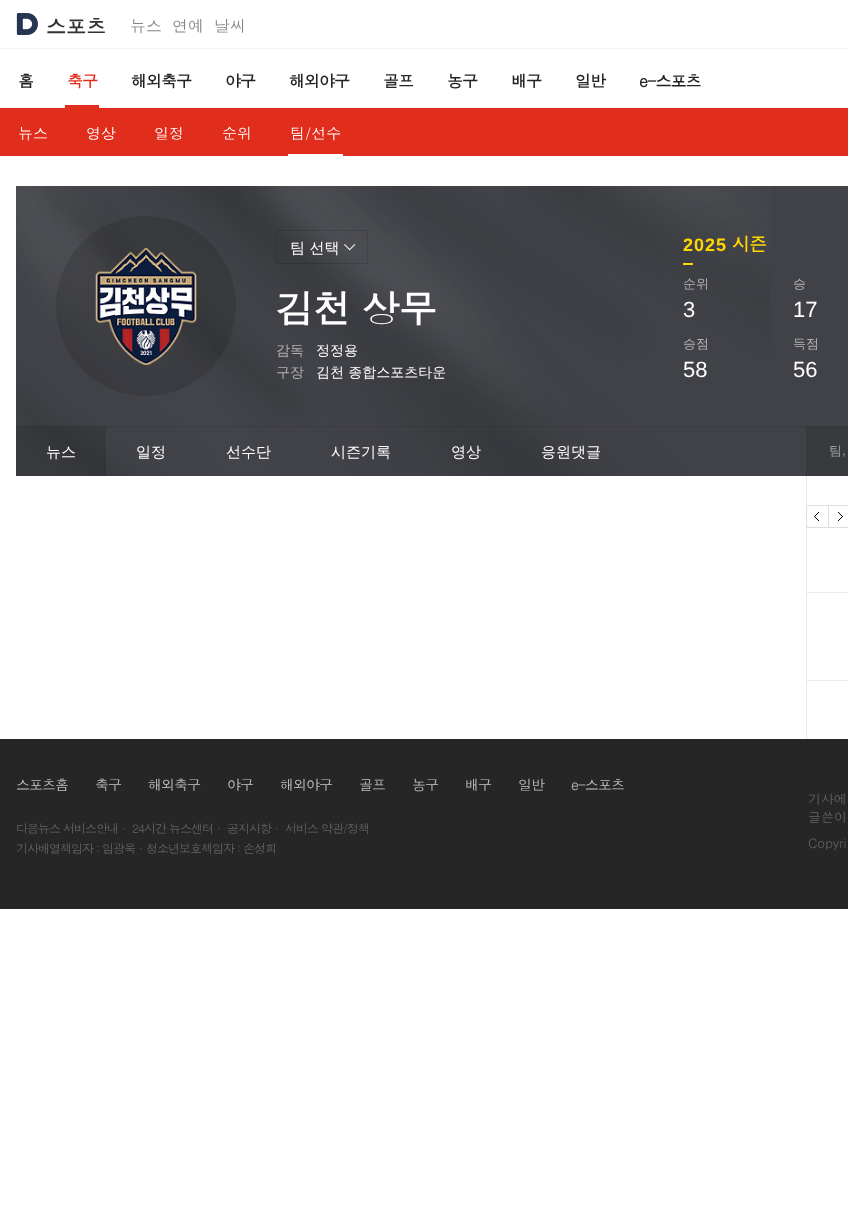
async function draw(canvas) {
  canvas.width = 848
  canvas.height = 1222
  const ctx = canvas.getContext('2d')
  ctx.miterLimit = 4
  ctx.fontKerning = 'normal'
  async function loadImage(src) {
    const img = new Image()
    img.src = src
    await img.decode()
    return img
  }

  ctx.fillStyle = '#fff'
  ctx.fillRect(0, 0, 848, 1222)
  ctx.drawImage(await loadImage('image0.png'), 16, 13, 22, 22)
  ctx.font = 'bold 20px Dotum'
  ctx.fillStyle = '#333'
  ctx.fillText('스포츠', 46, 34)
  ctx.font = '16px Dotum'
  ctx.fillStyle = '#858585'
  ctx.fillText('뉴스', 130, 32)
  ctx.fillText('연예', 172, 32)
  ctx.fillText('날씨', 214, 32)
  ctx.fillStyle = '#f4f4f4'
  ctx.fillRect(0, 48, 848, 1)
  ctx.fillRect(0, 107, 848, 1)
  ctx.letterSpacing = '-1px'
  ctx.font = 'bold 16px Dotum'
  ctx.fillStyle = '#222'
  ctx.fillText('홈', 18, 87)
  ctx.fillStyle = '#e12d1b'
  ctx.fillText('축구', 67, 87)
  ctx.fillRect(65, 105, 34, 3)
  ctx.fillStyle = '#222'
  ctx.fillText('해외축구', 131, 87)
  ctx.fillText('야구', 225, 87)
  ctx.fillText('해외야구', 289, 87)
  ctx.fillText('골프', 383, 87)
  ctx.fillText('농구', 447, 87)
  ctx.fillText('배구', 511, 87)
  ctx.fillText('일반', 575, 87)
  ctx.fillText('e-스포츠', 639, 87)
  ctx.fillStyle = '#e12d1b'
  ctx.fillRect(0, 108, 848, 48)
  ctx.letterSpacing = '0px'
  ctx.font = '15px Dotum'
  ctx.fillStyle = '#fff'
  ctx.fillText('뉴스', 18, 139)
  ctx.fillText('영상', 86, 139)
  ctx.fillText('일정', 154, 139)
  ctx.fillText('순위', 222, 139)
  ctx.fillText('팀/선수', 290, 139)
  ctx.fillRect(288, 154, 55, 2)
  ctx.fillStyle = '#414247'
  ctx.fillRect(16, 186, 832, 290)
  ctx.drawImage(await loadImage('image1.png'), 16, 186, 755, 290)
  ctx.drawImage(await loadImage('image2.png'), 344, 244, 12, 7)
  ctx.strokeStyle = '#0000001f'
  ctx.strokeRect(276.5, 230.5, 91, 33)
  ctx.font = '500 15px WenQuanYi Zen Hei'
  ctx.fillStyle = '#fff'
  ctx.fillText('팀 선택', 290, 253)
  ctx.letterSpacing = '1px'
  ctx.font = 'bold 18px Liberation Sans'
  ctx.fillStyle = '#ffd700'
  ctx.fillText('2025', 683, 251)
  ctx.letterSpacing = '-1px'
  ctx.font = 'bold 18px Dotum'
  ctx.fillText('시즌', 732, 251)
  ctx.fillRect(683, 263, 10, 2)
  ctx.letterSpacing = '0px'
  ctx.font = '500 13px WenQuanYi Zen Hei'
  ctx.fillStyle = '#b3b3b5'
  ctx.fillText('순위', 683, 288)
  ctx.font = '22px Liberation Sans'
  ctx.fillStyle = '#fff'
  ctx.fillText('3', 683, 317)
  ctx.font = '500 13px WenQuanYi Zen Hei'
  ctx.fillStyle = '#b3b3b5'
  ctx.fillText('승', 793, 288)
  ctx.font = '22px Liberation Sans'
  ctx.fillStyle = '#fff'
  ctx.fillText('17', 793, 317)
  ctx.font = '500 13px WenQuanYi Zen Hei'
  ctx.fillStyle = '#b3b3b5'
  ctx.fillText('승점', 683, 348)
  ctx.font = '22px Liberation Sans'
  ctx.fillStyle = '#fff'
  ctx.fillText('58', 683, 377)
  ctx.font = '500 13px WenQuanYi Zen Hei'
  ctx.fillStyle = '#b3b3b5'
  ctx.fillText('득점', 793, 348)
  ctx.font = '22px Liberation Sans'
  ctx.fillStyle = '#fff'
  ctx.fillText('56', 793, 377)
  ctx.fillStyle = '#0000001f'
  ctx.beginPath()
  ctx.arc(146, 306, 90, 0, 2 * Math.PI)
  ctx.fill()
  ctx.drawImage(await loadImage('image3.png'), 95, 247, 102, 118)
  ctx.letterSpacing = '-1px'
  ctx.font = 'bold 38px Dotum'
  ctx.fillStyle = '#fff'
  ctx.fillText('김천 상무', 276, 323)
  ctx.letterSpacing = '0px'
  ctx.font = '500 14px WenQuanYi Zen Hei'
  ctx.fillStyle = '#b3b3b5'
  ctx.fillText('감독', 276, 355)
  ctx.fillStyle = '#fff'
  ctx.fillText('정정용', 316, 355)
  ctx.fillStyle = '#b3b3b5'
  ctx.fillText('구장', 276, 377)
  ctx.fillStyle = '#fff'
  ctx.fillText('김천 종합스포츠타운', 316, 377)
  ctx.fillStyle = '#0000001f'
  ctx.fillRect(16, 426, 90, 50)
  ctx.fillStyle = '#00000014'
  ctx.fillRect(16, 426, 832, 1)
  ctx.font = '500 15px WenQuanYi Zen Hei'
  ctx.fillStyle = '#fff'
  ctx.fillText('뉴스', 46, 457)
  ctx.fillText('일정', 136, 457)
  ctx.fillText('선수단', 226, 457)
  ctx.fillText('시즌기록', 331, 457)
  ctx.fillText('영상', 451, 457)
  ctx.fillText('응원댓글', 541, 457)
  ctx.fillStyle = '#0000001f'
  ctx.fillRect(806, 426, 42, 50)
  ctx.font = '500 13px WenQuanYi Zen Hei'
  ctx.fillStyle = '#9c9d9f'
  ctx.fillText('팀', 829, 455)
  ctx.font = '13px Liberation Sans'
  ctx.fillText(',', 842, 455)
  ctx.fillStyle = '#e9e9e9'
  ctx.fillRect(806, 476, 1, 263)
  ctx.drawImage(await loadImage('image4.png'), 806, 505, 22, 23)
  ctx.drawImage(await loadImage('image5.png'), 828, 505, 20, 23)
  ctx.fillRect(806, 592, 42, 1)
  ctx.fillRect(806, 680, 42, 1)
  ctx.fillStyle = '#262626'
  ctx.fillRect(0, 739, 848, 170)
  ctx.letterSpacing = '-1px'
  ctx.font = '14px Dotum'
  ctx.fillStyle = '#c5c5c5'
  ctx.fillText('스포츠홈', 16, 790)
  ctx.fillText('축구', 95, 790)
  ctx.fillText('해외축구', 148, 790)
  ctx.fillText('야구', 227, 790)
  ctx.fillText('해외야구', 280, 790)
  ctx.fillText('골프', 359, 790)
  ctx.fillText('농구', 412, 790)
  ctx.fillText('배구', 465, 790)
  ctx.fillText('일반', 518, 790)
  ctx.fillText('e-스포츠', 571, 790)
  ctx.font = '12px Dotum'
  ctx.fillStyle = '#656565'
  ctx.fillText('다음뉴스 서비스안내', 16, 833)
  ctx.fillText('·', 122, 833)
  ctx.fillText('24시간 뉴스센터', 132, 833)
  ctx.fillText('·', 217, 833)
  ctx.fillText('공지사항', 227, 833)
  ctx.fillText('·', 275, 833)
  ctx.fillText('서비스 약관/정책', 285, 833)
  ctx.fillText('기사배열책임자 : 임광욱', 16, 853)
  ctx.fillText('·', 139, 853)
  ctx.fillText('청소년보호책임자 : 손성희', 146, 853)
  ctx.letterSpacing = '0px'
  ctx.font = '13px Dotum'
  ctx.fillText('기사에', 808, 804)
  ctx.fillText('글쓴이', 808, 822)
  ctx.fillText('Copyri', 808, 848)
}

draw(document.querySelector('canvas'))
